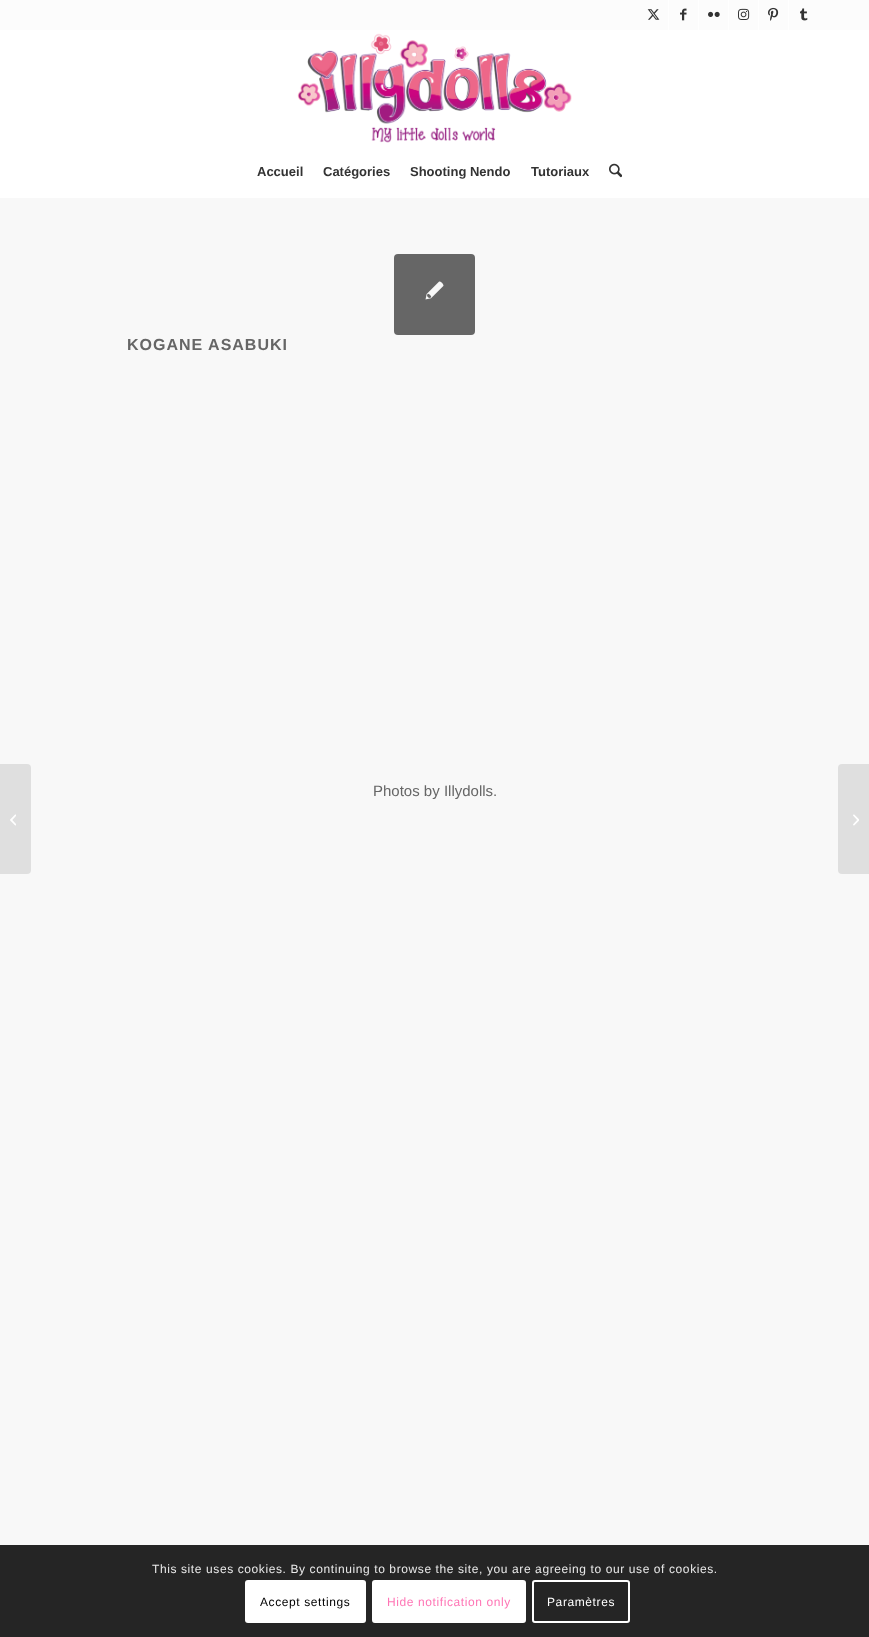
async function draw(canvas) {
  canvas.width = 869
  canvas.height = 1637
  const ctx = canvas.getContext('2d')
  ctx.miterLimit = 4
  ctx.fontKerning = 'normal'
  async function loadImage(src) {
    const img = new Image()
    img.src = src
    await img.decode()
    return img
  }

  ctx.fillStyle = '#fff'
  ctx.fillRect(0, 0, 869, 1637)
  ctx.fillStyle = '#fcfcfc'
  ctx.fillRect(0, 0, 869, 30)
  ctx.fillStyle = '#fff'
  ctx.fillRect(668, 0, 1, 30)
  ctx.drawImage(await loadImage('image0.png'), 647, 9, 13, 11)
  ctx.fillRect(698, 0, 1, 30)
  ctx.drawImage(await loadImage('image1.png'), 680, 8, 7, 13)
  ctx.fillRect(728, 0, 1, 30)
  ctx.drawImage(await loadImage('image2.png'), 708, 11, 12, 6)
  ctx.fillRect(758, 0, 1, 30)
  ctx.drawImage(await loadImage('image3.png'), 738, 8, 12, 12)
  ctx.fillRect(788, 0, 1, 30)
  ctx.drawImage(await loadImage('image4.png'), 768, 7, 11, 14)
  ctx.drawImage(await loadImage('image5.png'), 800, 8, 8, 13)
  ctx.drawImage(await loadImage('image6.png'), 297, 33, 275, 110)
  ctx.font = 'bold 13px Liberation Sans'
  ctx.fillStyle = '#333'
  ctx.fillText('Accueil', 257, 176)
  ctx.fillText('Catégories', 323, 176)
  ctx.fillText('Shooting Nendo', 410, 176)
  ctx.fillText('Tutoriaux', 531, 176)
  ctx.drawImage(await loadImage('image7.png'), 609, 163, 13, 15)
  ctx.fillStyle = '#f8f8f8'
  ctx.fillRect(0, 198, 869, 1347)
  ctx.fillStyle = '#666'
  ctx.beginPath()
  ctx.roundRect(394, 254, 81, 81, 4)
  ctx.fill()
  ctx.drawImage(await loadImage('image8.png'), 425, 281, 19, 19)
  ctx.letterSpacing = '1px'
  ctx.font = 'bold 16px Liberation Sans'
  ctx.fillText('KOGANE ASABUKI', 127, 350)
  ctx.letterSpacing = '0px'
  ctx.font = '15px Liberation Sans'
  ctx.fillText('Photos by Illydolls.', 373, 796)
  ctx.fillStyle = '#dfdfdf'
  ctx.beginPath()
  ctx.roundRect(0, 764, 31, 110, [0, 4, 4, 0])
  ctx.fill()
  ctx.drawImage(await loadImage('image9.png'), 10, 814, 6, 12)
  ctx.beginPath()
  ctx.roundRect(838, 764, 31, 110, [4, 0, 0, 4])
  ctx.fill()
  ctx.drawImage(await loadImage('image10.png'), 853, 814, 6, 12)
  ctx.fillStyle = '#252525'
  ctx.fillRect(0, 1545, 869, 92)
  ctx.letterSpacing = '0.6px'
  ctx.font = '12px Liberation Sans'
  ctx.fillStyle = '#e9e9e9'
  ctx.fillText('This site uses cookies. By continuing to browse the site, you are agreeing to our use of cookies.', 152, 1573)
  ctx.fillStyle = '#fff'
  ctx.beginPath()
  ctx.roundRect(245, 1580, 121, 43, 3)
  ctx.fill()
  ctx.fillStyle = '#000'
  ctx.fillText('Accept settings', 260, 1606)
  ctx.fillStyle = '#fff'
  ctx.beginPath()
  ctx.roundRect(373, 1581, 152, 41, 2)
  ctx.fill()
  ctx.strokeStyle = '#fff'
  ctx.lineWidth = 2
  ctx.stroke()
  ctx.fillStyle = '#ff75b5'
  ctx.fillText('Hide notification only', 387, 1606)
  ctx.beginPath()
  ctx.roundRect(533, 1581, 96, 41, 2)
  ctx.stroke()
  ctx.fillStyle = '#fff'
  ctx.fillText('Paramètres', 547, 1606)
}

draw(document.querySelector('canvas'))
